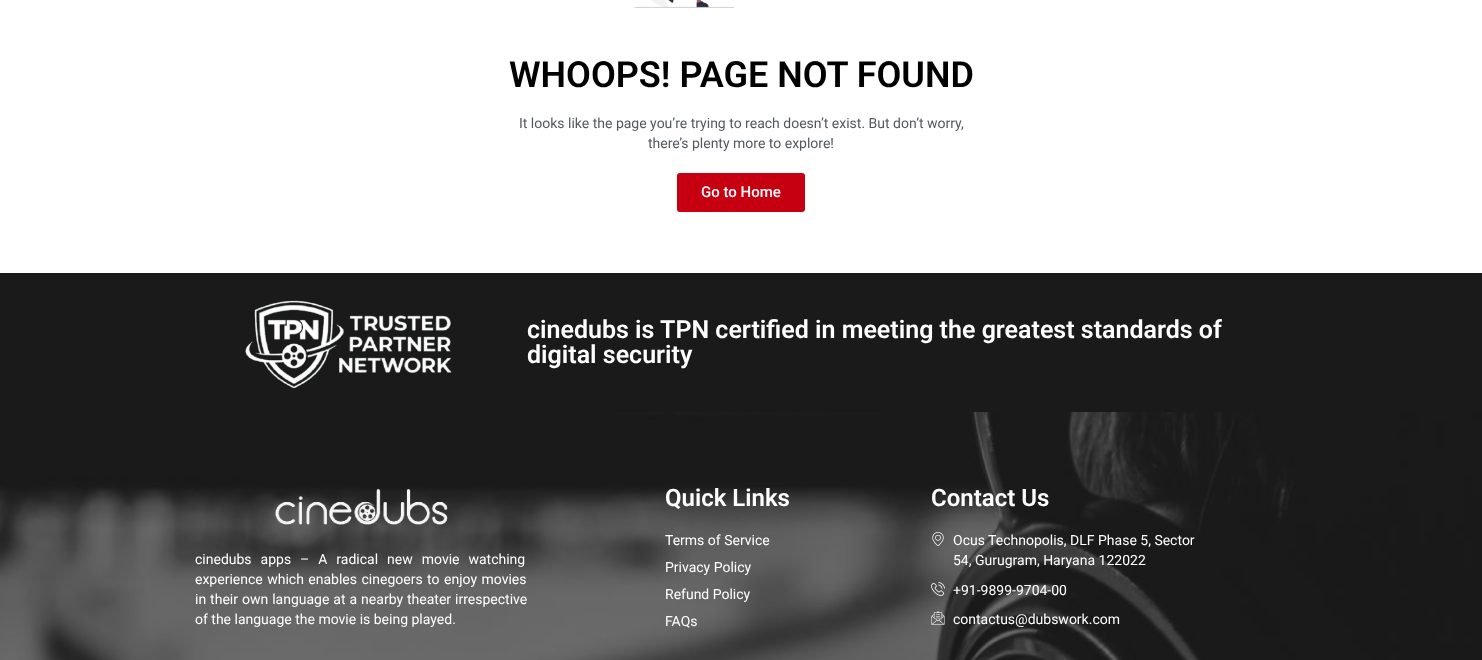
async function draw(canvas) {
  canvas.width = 1482
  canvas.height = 660
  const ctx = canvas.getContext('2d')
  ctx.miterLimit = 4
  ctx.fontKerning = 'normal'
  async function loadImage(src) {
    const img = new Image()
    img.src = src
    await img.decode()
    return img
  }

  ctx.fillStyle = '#fff'
  ctx.fillRect(0, 0, 1482, 660)
  ctx.drawImage(await loadImage('image0.png'), 634, 0, 100, 8)
  ctx.font = '600 36px Roboto'
  ctx.fillStyle = '#000'
  ctx.fillText('WHOOPS! PAGE NOT FOUND', 509, 87)
  ctx.font = '14px Roboto'
  ctx.fillStyle = '#54595f'
  ctx.fillText('It looks like the page you’re trying to reach doesn’t exist. But don’t worry,', 519, 128)
  ctx.fillText('there’s plenty more to explore!', 648, 148)
  ctx.fillStyle = '#c70011'
  ctx.beginPath()
  ctx.roundRect(677, 173, 128, 39, 3)
  ctx.fill()
  ctx.font = '500 15px Roboto'
  ctx.fillStyle = '#fff'
  ctx.fillText('Go to Home', 701, 197)
  ctx.fillStyle = '#1a1a1a'
  ctx.fillRect(0, 273, 1482, 139)
  ctx.drawImage(await loadImage('image1.png'), 245, 300, 207, 89)
  ctx.font = '600 25px Roboto'
  ctx.fillStyle = '#fff'
  ctx.fillText('cinedubs is TPN certified in meeting the greatest standards of', 527, 338)
  ctx.fillText('digital security', 527, 363)
  ctx.drawImage(await loadImage('image2.png'), 0, 412, 1482, 248)
  ctx.drawImage(await loadImage('image3.png'), 275, 489, 173, 36)
  ctx.wordSpacing = '5.5px'
  ctx.font = '14px Roboto'
  ctx.fillText('cinedubs apps – A radical new movie watching', 195, 564)
  ctx.wordSpacing = '1px'
  ctx.fillText('experience which enables cinegoers to enjoy movies', 195, 584)
  ctx.wordSpacing = '0.5px'
  ctx.fillText('in their own language at a nearby theater irrespective', 195, 604)
  ctx.wordSpacing = '0px'
  ctx.fillText('of the language the movie is being played.', 195, 624)
  ctx.font = '600 24px Roboto'
  ctx.fillText('Quick Links', 665, 506)
  ctx.font = '14px Roboto'
  ctx.fillText('Terms of Service', 665, 545)
  ctx.fillText('Privacy Policy', 665, 572)
  ctx.fillText('Refund Policy', 665, 599)
  ctx.fillText('FAQs', 665, 626)
  ctx.font = '600 24px Roboto'
  ctx.fillText('Contact Us', 931, 506)
  ctx.drawImage(await loadImage('image4.png'), 932, 532, 12, 14)
  ctx.font = '14px Roboto'
  ctx.fillText('Ocus Technopolis, DLF Phase 5, Sector', 953, 545)
  ctx.fillText('54, Gurugram, Haryana 122022', 953, 565)
  ctx.drawImage(await loadImage('image5.png'), 931, 582, 14, 14)
  ctx.fillText('+91-9899-9704-00', 953, 595)
  ctx.drawImage(await loadImage('image6.png'), 931, 611, 14, 14)
  ctx.fillText('contactus@dubswork.com', 953, 624)
}

draw(document.querySelector('canvas'))
